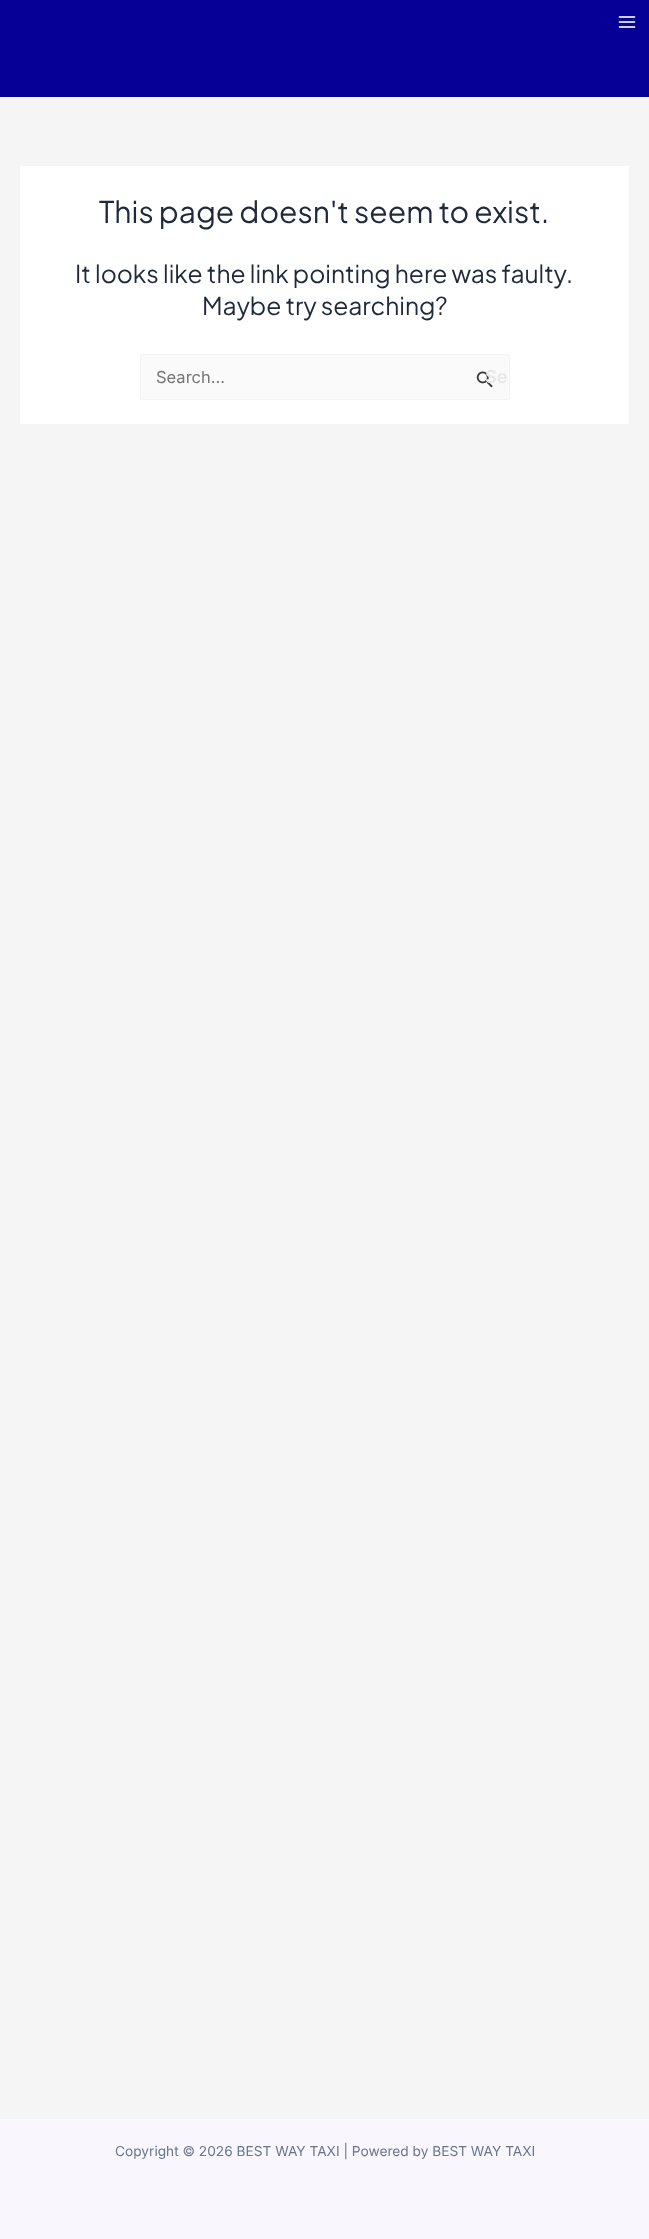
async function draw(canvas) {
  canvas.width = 649
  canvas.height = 2239
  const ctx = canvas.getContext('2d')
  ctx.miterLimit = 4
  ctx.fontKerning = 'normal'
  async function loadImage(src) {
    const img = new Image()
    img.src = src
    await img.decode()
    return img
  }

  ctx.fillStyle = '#f5f5f5'
  ctx.fillRect(0, 0, 649, 2239)
  ctx.fillStyle = '#060097'
  ctx.fillRect(0, 0, 649, 97)
  ctx.fillStyle = '#f2f5f7'
  ctx.fillRect(0, 97, 649, 3)
  ctx.drawImage(await loadImage('image0.png'), 618, 16, 18, 12)
  ctx.fillStyle = '#fff'
  ctx.fillRect(20, 166, 609, 258)
  ctx.font = '30px Plus Jakarta Sans'
  ctx.fillStyle = '#1e293b'
  ctx.fillText('This page doesn\'t seem to exist.', 99, 223)
  ctx.font = '24.6px Plus Jakarta Sans'
  ctx.fillText('It looks like the link pointing here was faulty.', 75, 283)
  ctx.fillText('Maybe try searching?', 202, 315)
  ctx.fillStyle = '#fafafa'
  ctx.beginPath()
  ctx.roundRect(140.5, 354.5, 369, 45, 1.5)
  ctx.fill()
  ctx.strokeStyle = '#f2f5f7'
  ctx.stroke()
  ctx.font = '16.5px Inter'
  ctx.fillStyle = '#757575'
  ctx.fillText('Search...', 156, 383)
  ctx.drawImage(await loadImage('image1.png'), 476, 371, 17, 17)
  ctx.font = '600 18px Inter'
  ctx.fillStyle = '#e8e8e8'
  ctx.fillText('Se', 485, 383)
  ctx.fillStyle = '#f9f6fe'
  ctx.fillRect(0, 2119, 649, 120)
  ctx.fillStyle = '#f2f5f7'
  ctx.fillRect(0, 2118, 649, 1)
  ctx.font = '13.7px Inter'
  ctx.fillStyle = '#67768e'
  ctx.fillText('Copyright © 2026 BEST WAY TAXI | Powered by BEST WAY TAXI', 115, 2156)
}

draw(document.querySelector('canvas'))
